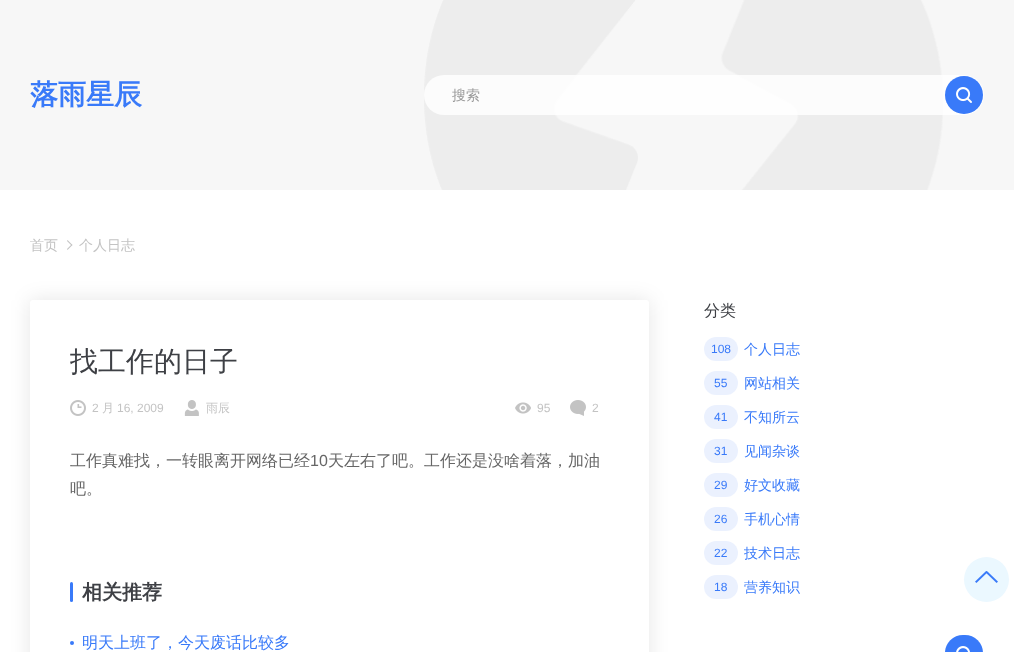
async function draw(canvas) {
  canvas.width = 1014
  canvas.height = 652
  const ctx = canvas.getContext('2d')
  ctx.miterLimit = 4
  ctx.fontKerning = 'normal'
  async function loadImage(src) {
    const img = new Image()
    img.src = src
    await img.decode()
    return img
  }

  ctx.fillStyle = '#fff'
  ctx.fillRect(0, 0, 1014, 652)
  ctx.fillStyle = '#f7f7f7'
  ctx.fillRect(0, 0, 1014, 190)
  ctx.drawImage(await loadImage('image0.png'), 424, 0, 519, 190)
  ctx.font = 'bold 28px WenQuanYi Zen Hei'
  ctx.fillStyle = '#397af9'
  ctx.fillText('落雨星辰', 30, 104)
  ctx.fillStyle = '#ffffffcc'
  ctx.beginPath()
  ctx.roundRect(424, 75, 560, 40, 20)
  ctx.fill()
  ctx.font = '500 14px WenQuanYi Zen Hei'
  ctx.fillStyle = '#999'
  ctx.fillText('搜索', 452, 100)
  ctx.fillStyle = '#397af9'
  ctx.beginPath()
  ctx.arc(964, 95, 19, 0, 2 * Math.PI)
  ctx.fill()
  ctx.drawImage(await loadImage('image1.png'), 956, 87, 16, 16)
  ctx.fillStyle = '#c3c3c3'
  ctx.fillText('首页', 30, 250)
  ctx.beginPath()
  ctx.moveTo(67.5, 240)
  ctx.lineTo(72.5, 245)
  ctx.lineTo(71.5, 245.5)
  ctx.lineTo(67, 241)
  ctx.closePath()
  ctx.fill()
  ctx.beginPath()
  ctx.moveTo(71.5, 244.5)
  ctx.lineTo(72.5, 245)
  ctx.lineTo(67.5, 250)
  ctx.lineTo(67, 249)
  ctx.closePath()
  ctx.fill()
  ctx.fillText('个人日志', 79, 250)
  ctx.fillStyle = '#0000001a'
  ctx.filter = 'blur(10px)'
  ctx.beginPath()
  ctx.roundRect(30, 300, 619, 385, 3)
  ctx.fill()
  ctx.filter = 'none'
  ctx.fillStyle = '#fff'
  ctx.beginPath()
  ctx.roundRect(30, 300, 619, 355, 3)
  ctx.fill()
  ctx.font = '500 28px WenQuanYi Zen Hei'
  ctx.fillStyle = '#3e4045'
  ctx.fillText('找工作的日子', 70, 371)
  ctx.drawImage(await loadImage('image2.png'), 70, 400, 16, 16)
  ctx.font = '12px Liberation Sans'
  ctx.fillStyle = '#c3c3c3'
  ctx.fillText('2', 92, 412)
  ctx.font = '500 12px WenQuanYi Zen Hei'
  ctx.fillText('月', 102, 412)
  ctx.font = '12px Liberation Sans'
  ctx.fillText('16, 2009', 117, 412)
  ctx.drawImage(await loadImage('image3.png'), 184, 400, 15, 16)
  ctx.font = '500 12px WenQuanYi Zen Hei'
  ctx.fillText('雨辰', 206, 412)
  ctx.drawImage(await loadImage('image4.png'), 515, 402, 16, 12)
  ctx.font = '12px Liberation Sans'
  ctx.fillText('95', 537, 412)
  ctx.drawImage(await loadImage('image5.png'), 570, 400, 16, 16)
  ctx.fillText('2', 592, 412)
  ctx.font = '500 16px WenQuanYi Zen Hei'
  ctx.fillStyle = '#666'
  ctx.fillText('工作真难找，一转眼离开网络已经', 70, 466)
  ctx.font = '16px Liberation Sans'
  ctx.fillText('10', 310, 466)
  ctx.font = '500 16px WenQuanYi Zen Hei'
  ctx.fillText('天左右了吧。工作还是没啥着落，加油', 328, 466)
  ctx.fillText('吧。', 70, 494)
  ctx.fillStyle = '#397af9'
  ctx.beginPath()
  ctx.roundRect(70, 582, 3, 20, 1.5)
  ctx.fill()
  ctx.font = 'bold 20px WenQuanYi Zen Hei'
  ctx.fillStyle = '#3e4045'
  ctx.fillText('相关推荐', 82, 599)
  ctx.fillStyle = '#397af9'
  ctx.beginPath()
  ctx.arc(72, 643, 2, 0, 2 * Math.PI)
  ctx.fill()
  ctx.font = '500 16px WenQuanYi Zen Hei'
  ctx.fillText('明天上班了，今天废话比较多', 82, 648)
  ctx.fillStyle = '#3e4045'
  ctx.fillText('分类', 704, 316)
  ctx.fillStyle = '#397af91a'
  ctx.beginPath()
  ctx.roundRect(704, 337, 34, 24, 12)
  ctx.fill()
  ctx.font = '12px Liberation Sans'
  ctx.fillStyle = '#397af9'
  ctx.fillText('108', 711, 353)
  ctx.font = '500 14px WenQuanYi Zen Hei'
  ctx.fillText('个人日志', 744, 354)
  ctx.fillStyle = '#397af91a'
  ctx.beginPath()
  ctx.roundRect(704, 371, 34, 24, 12)
  ctx.fill()
  ctx.font = '12px Liberation Sans'
  ctx.fillStyle = '#397af9'
  ctx.fillText('55', 714, 387)
  ctx.font = '500 14px WenQuanYi Zen Hei'
  ctx.fillText('网站相关', 744, 388)
  ctx.fillStyle = '#397af91a'
  ctx.beginPath()
  ctx.roundRect(704, 405, 34, 24, 12)
  ctx.fill()
  ctx.font = '12px Liberation Sans'
  ctx.fillStyle = '#397af9'
  ctx.fillText('41', 714, 421)
  ctx.font = '500 14px WenQuanYi Zen Hei'
  ctx.fillText('不知所云', 744, 422)
  ctx.fillStyle = '#397af91a'
  ctx.beginPath()
  ctx.roundRect(704, 439, 34, 24, 12)
  ctx.fill()
  ctx.font = '12px Liberation Sans'
  ctx.fillStyle = '#397af9'
  ctx.fillText('31', 714, 455)
  ctx.font = '500 14px WenQuanYi Zen Hei'
  ctx.fillText('见闻杂谈', 744, 456)
  ctx.fillStyle = '#397af91a'
  ctx.beginPath()
  ctx.roundRect(704, 473, 34, 24, 12)
  ctx.fill()
  ctx.font = '12px Liberation Sans'
  ctx.fillStyle = '#397af9'
  ctx.fillText('29', 714, 489)
  ctx.font = '500 14px WenQuanYi Zen Hei'
  ctx.fillText('好文收藏', 744, 490)
  ctx.fillStyle = '#397af91a'
  ctx.beginPath()
  ctx.roundRect(704, 507, 34, 24, 12)
  ctx.fill()
  ctx.font = '12px Liberation Sans'
  ctx.fillStyle = '#397af9'
  ctx.fillText('26', 714, 523)
  ctx.font = '500 14px WenQuanYi Zen Hei'
  ctx.fillText('手机心情', 744, 524)
  ctx.fillStyle = '#397af91a'
  ctx.beginPath()
  ctx.roundRect(704, 541, 34, 24, 12)
  ctx.fill()
  ctx.font = '12px Liberation Sans'
  ctx.fillStyle = '#397af9'
  ctx.fillText('22', 714, 557)
  ctx.font = '500 14px WenQuanYi Zen Hei'
  ctx.fillText('技术日志', 744, 558)
  ctx.fillStyle = '#397af91a'
  ctx.beginPath()
  ctx.roundRect(704, 575, 34, 24, 12)
  ctx.fill()
  ctx.font = '12px Liberation Sans'
  ctx.fillStyle = '#397af9'
  ctx.fillText('18', 714, 591)
  ctx.font = '500 14px WenQuanYi Zen Hei'
  ctx.fillText('营养知识', 744, 592)
  ctx.beginPath()
  ctx.roundRect(945, 635, 38, 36, 19)
  ctx.fill()
  ctx.drawImage(await loadImage('image6.png'), 956, 646, 14, 6)
  ctx.fillStyle = '#ebf8ff'
  ctx.beginPath()
  ctx.arc(986.5, 579.5, 22.5, 0, 2 * Math.PI)
  ctx.fill()
  ctx.drawImage(await loadImage('image7.png'), 975, 571, 23, 12)
}

draw(document.querySelector('canvas'))
